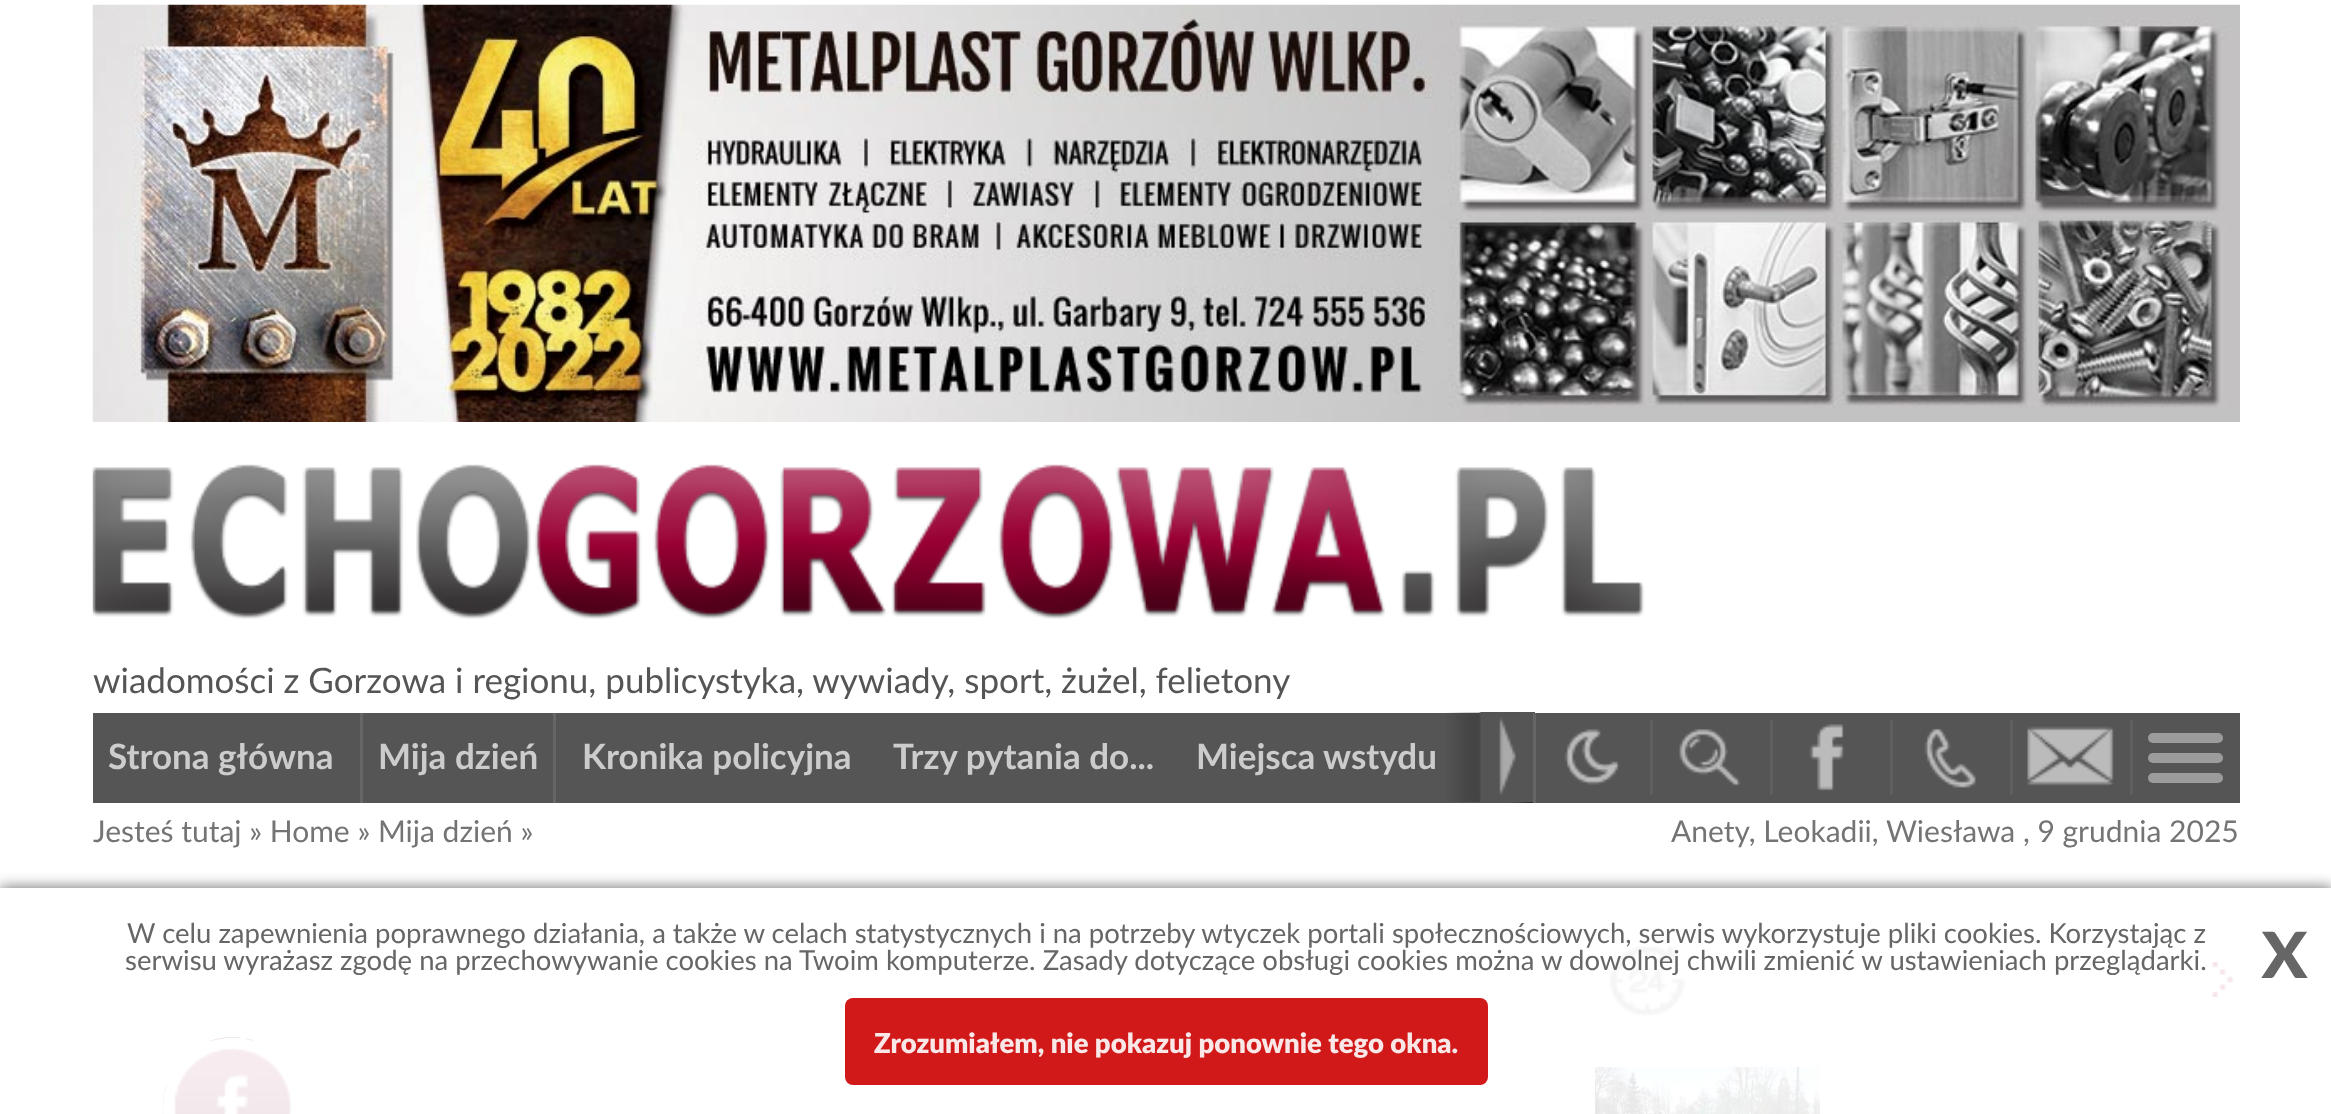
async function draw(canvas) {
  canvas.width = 2331
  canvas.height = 1114
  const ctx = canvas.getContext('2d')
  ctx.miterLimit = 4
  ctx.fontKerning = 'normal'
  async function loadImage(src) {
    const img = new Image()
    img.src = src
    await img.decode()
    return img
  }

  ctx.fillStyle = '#fff'
  ctx.fillRect(0, 0, 2331, 1114)
  ctx.drawImage(await loadImage('image0.png'), 92, 4, 2148, 418)
  ctx.drawImage(await loadImage('image1.png'), 92, 464, 1553, 155)
  ctx.font = '35px Lato'
  ctx.fillStyle = '#555'
  ctx.fillText('wiadomości z Gorzowa i regionu, publicystyka, wywiady, sport, żużel, felietony', 93, 693)
  ctx.fillRect(93, 713, 1440, 90)
  ctx.font = 'bold 35px Lato'
  ctx.fillStyle = '#ccc'
  ctx.fillText('Strona główna', 108, 769)
  ctx.fillStyle = '#666'
  ctx.fillRect(553, 713, 3, 90)
  ctx.fillRect(360, 713, 3, 90)
  ctx.fillStyle = '#ccc'
  ctx.fillText('Mija dzień', 378, 769)
  ctx.fillText('Kronika policyjna', 582, 769)
  ctx.fillText('Trzy pytania do...', 893, 769)
  ctx.fillText('Miejsca wstydu', 1196, 769)
  ctx.save()
  ctx.beginPath()
  ctx.rect(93, 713, 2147, 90)
  ctx.clip()
  ctx.fillStyle = '#000'
  ctx.filter = 'blur(10px)'
  ctx.beginPath()
  ctx.rect(1523, 713, 707, 90)
  ctx.fill()
  ctx.filter = 'none'
  ctx.restore()
  ctx.fillStyle = '#555'
  ctx.fillRect(1536, 713, 704, 90)
  ctx.drawImage(await loadImage('image2.png'), 1446, 712, 89, 90)
  ctx.fillStyle = '#666'
  ctx.fillRect(1533, 713, 3, 90)
  ctx.drawImage(await loadImage('image3.png'), 1564, 729, 55, 56)
  ctx.drawImage(await loadImage('image4.png'), 1679, 729, 62, 57)
  ctx.fillStyle = '#5f5f5f'
  ctx.fillRect(1650, 720, 3, 75)
  ctx.drawImage(await loadImage('image5.png'), 1809, 724, 35, 67)
  ctx.fillRect(1770, 720, 3, 75)
  ctx.drawImage(await loadImage('image6.png'), 1924, 728, 52, 60)
  ctx.fillRect(1890, 720, 3, 75)
  ctx.drawImage(await loadImage('image7.png'), 2027, 726, 87, 60)
  ctx.fillRect(2010, 720, 3, 75)
  ctx.fillRect(2130, 720, 3, 75)
  ctx.fillStyle = '#9c9c9c'
  ctx.beginPath()
  ctx.roundRect(2148, 733, 75, 10, 5)
  ctx.fill()
  ctx.beginPath()
  ctx.roundRect(2148, 753, 75, 10, 5)
  ctx.fill()
  ctx.beginPath()
  ctx.roundRect(2148, 773, 75, 10, 5)
  ctx.fill()
  ctx.font = '30px Lato'
  ctx.fillStyle = '#747474'
  ctx.fillText('Jesteś tutaj » Home » Mija dzień »', 93, 842)
  ctx.fillText('Anety, Leokadii, Wiesława , 9 grudnia 2025', 1671, 842)
  ctx.drawImage(await loadImage('image8.png'), 162, 1037, 141, 77)
  ctx.beginPath()
  ctx.arc(233, 1108, 65, 0, 2 * Math.PI)
  ctx.strokeStyle = '#fff'
  ctx.lineWidth = 10
  ctx.stroke()
  ctx.drawImage(await loadImage('image9.png'), 1609, 944, 77, 74)
  ctx.drawImage(await loadImage('image10.png'), 2211, 962, 23, 35)
  ctx.drawImage(await loadImage('image11.png'), 1595, 1067, 225, 47)
  ctx.save()
  ctx.beginPath()
  ctx.rect(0, 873, 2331, 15)
  ctx.clip()
  ctx.fillStyle = '#555555e6'
  ctx.filter = 'blur(7.5px)'
  ctx.beginPath()
  ctx.rect(0, 888, 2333, 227)
  ctx.fill()
  ctx.filter = 'none'
  ctx.restore()
  ctx.fillStyle = '#ffffffe6'
  ctx.fillRect(162, 944, 2072, 170)
  ctx.font = '27.5px Lato'
  ctx.fillStyle = '#666'
  ctx.fillText('W celu zapewnienia poprawnego działania, a także w celach statystycznych i na potrzeby wtyczek portali społecznościowych, serwis wykorzystuje pliki cookies. Korzystając z', 127, 943)
  ctx.fillText('serwisu wyrażasz zgodę na przechowywanie cookies na Twoim komputerze. Zasady dotyczące obsługi cookies można w dowolnej chwili zmienić w ustawieniach przeglądarki.', 125, 970)
  ctx.fillStyle = '#cc0000e6'
  ctx.beginPath()
  ctx.roundRect(845, 998, 643, 87, 8)
  ctx.fill()
  ctx.font = '900 27.5px Lato'
  ctx.fillStyle = '#fae8e8'
  ctx.fillText('Zrozumiałem, nie pokazuj ponownie tego okna.', 874, 1053)
  ctx.font = 'bold 90px Lato'
  ctx.fillStyle = '#666'
  ctx.fillText('x', 2261, 978)
}

draw(document.querySelector('canvas'))
